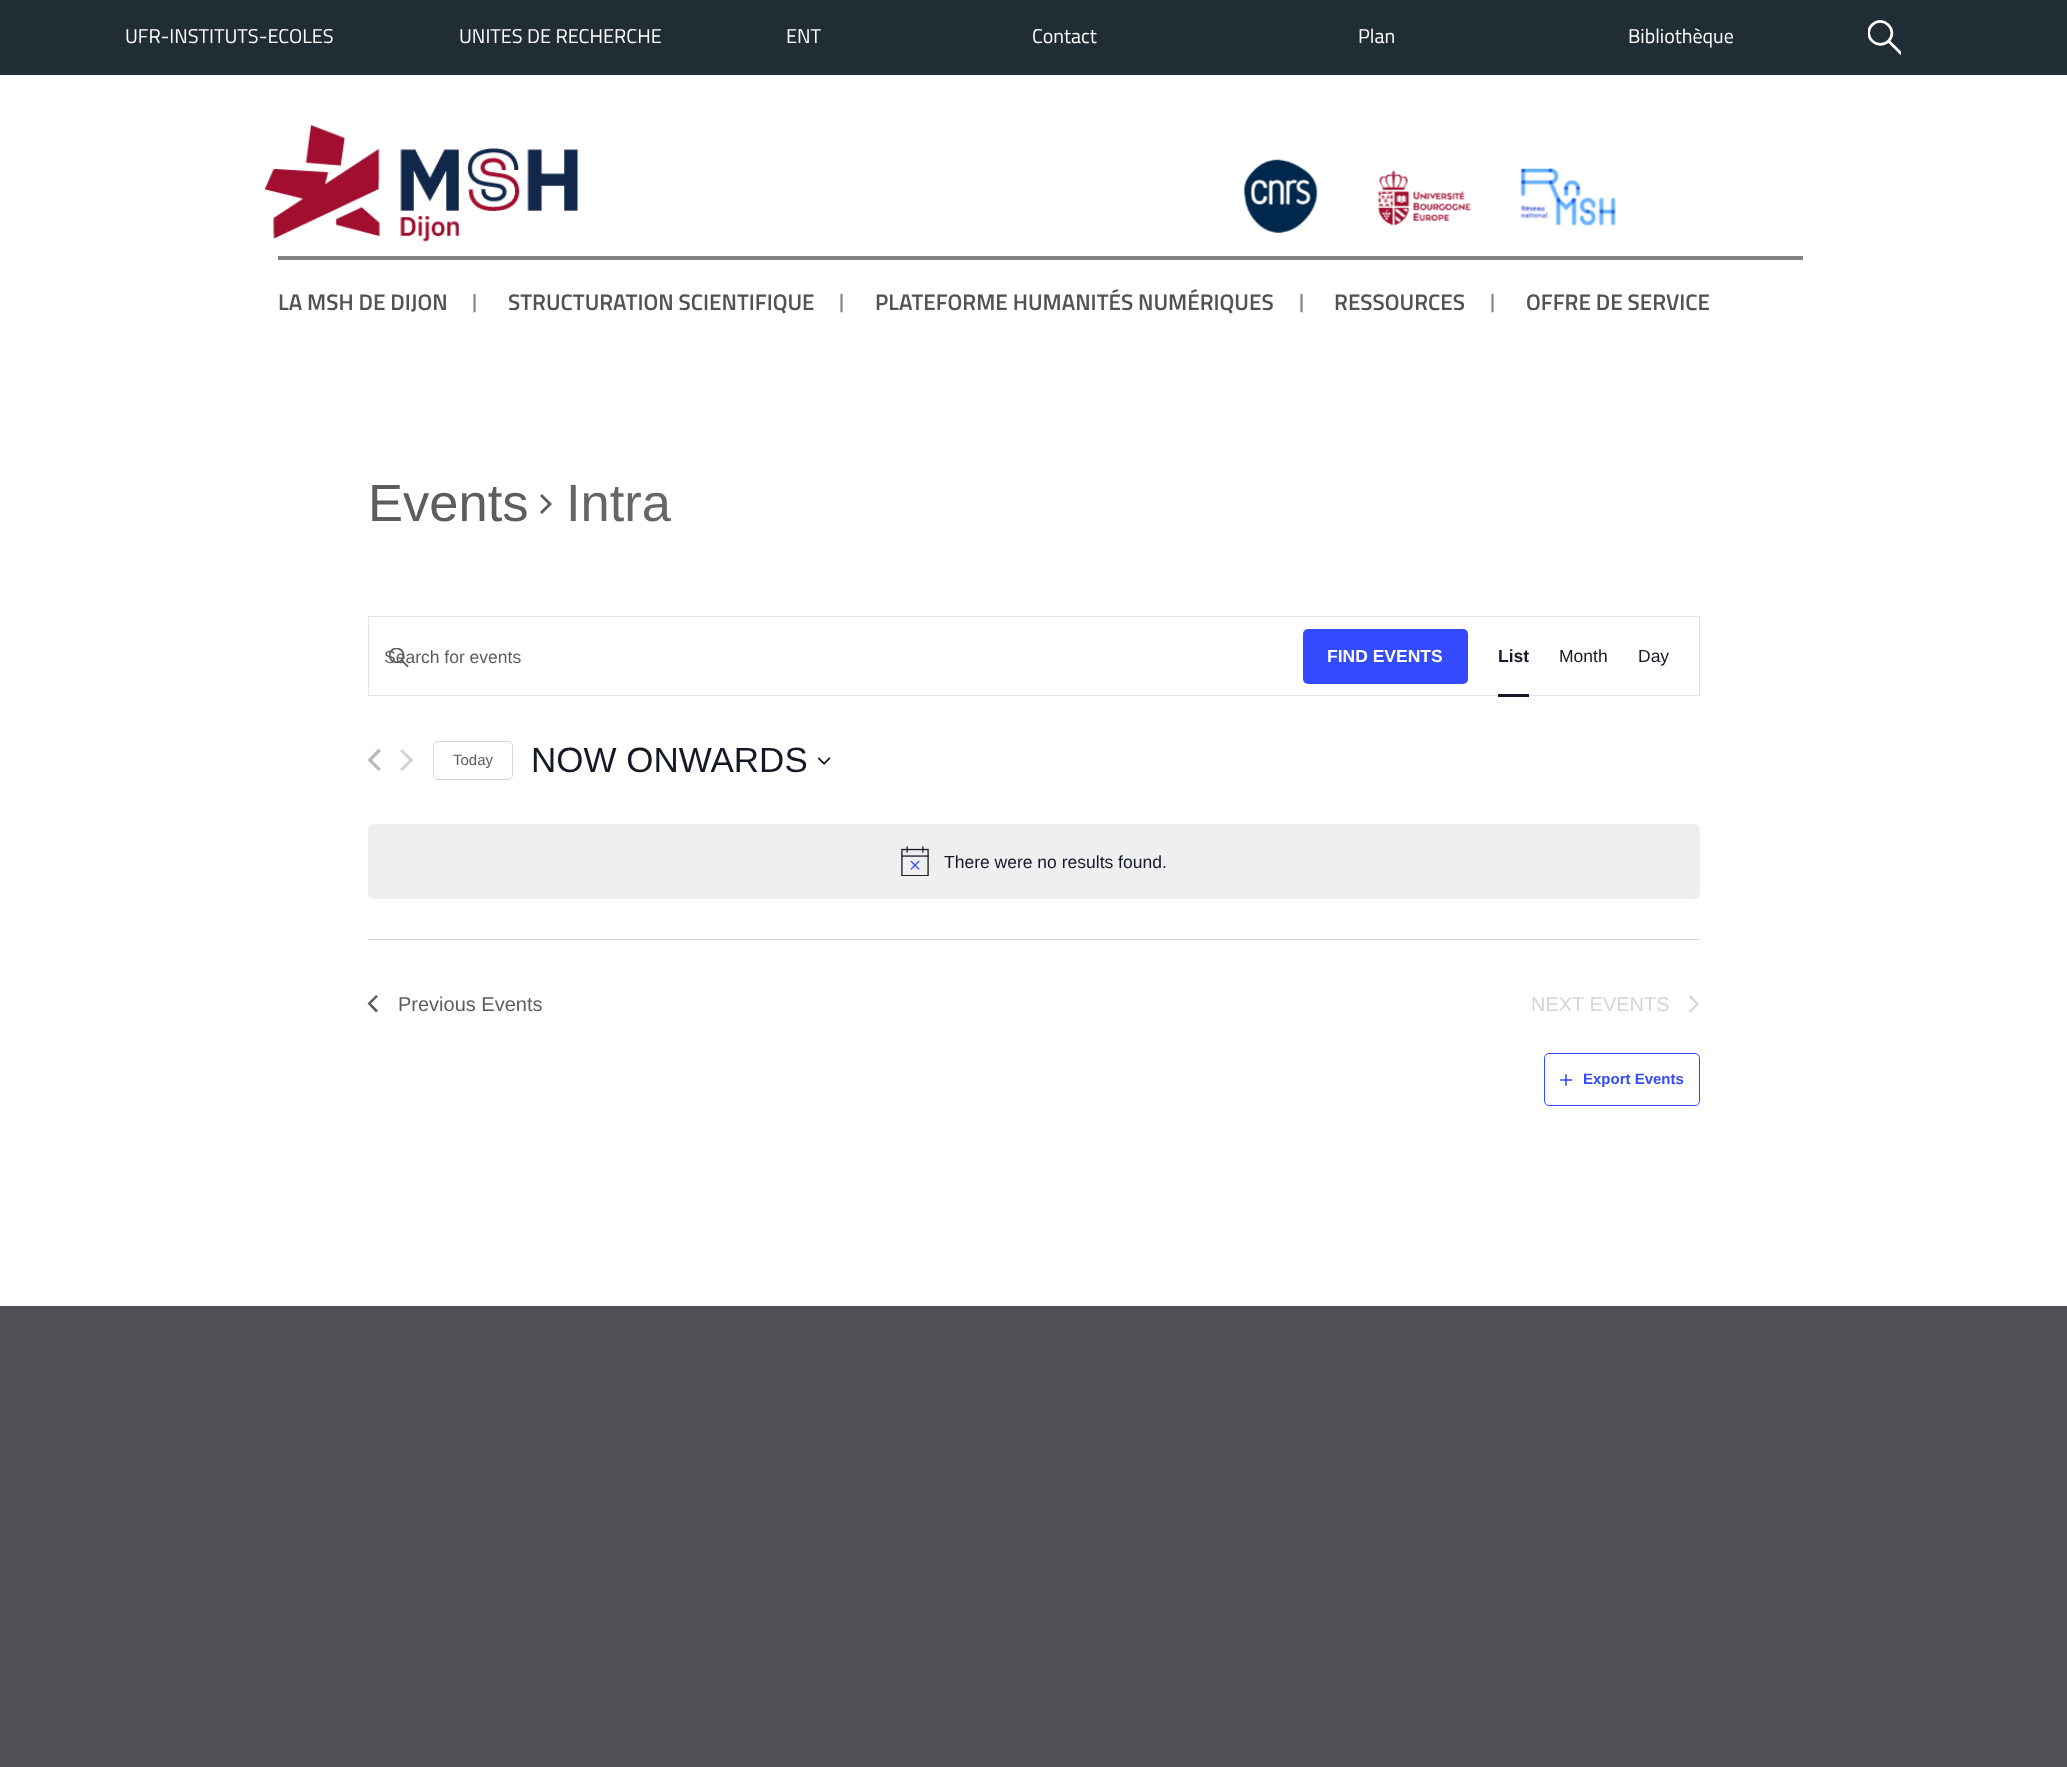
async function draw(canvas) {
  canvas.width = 2067
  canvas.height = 1767
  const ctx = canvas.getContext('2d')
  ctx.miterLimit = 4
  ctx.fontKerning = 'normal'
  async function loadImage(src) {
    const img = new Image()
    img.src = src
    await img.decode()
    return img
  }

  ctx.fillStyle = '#fff'
  ctx.fillRect(0, 0, 2067, 1767)
  ctx.fillStyle = '#212d35'
  ctx.fillRect(0, 0, 2067, 75)
  ctx.font = '20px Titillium'
  ctx.fillStyle = '#fff'
  ctx.fillText('UFR-INSTITUTS-ECOLES', 125, 43)
  ctx.fillText('UNITES DE RECHERCHE', 459, 43)
  ctx.fillText('ENT', 786, 43)
  ctx.fillText('Contact', 1032, 43)
  ctx.fillText('Plan', 1358, 43)
  ctx.fillText('Bibliothèque', 1628, 43)
  ctx.save()
  ctx.beginPath()
  ctx.rect(1868, 20, 33, 35)
  ctx.clip()
  ctx.beginPath()
  ctx.moveTo(1888.5, 41)
  ctx.bezierCurveTo(1899, 30, 1882.5, 14, 1872, 25)
  ctx.bezierCurveTo(1861.5, 35.5, 1877.5, 51.5, 1888.5, 41)
  ctx.lineTo(1901, 53.5)
  ctx.strokeStyle = '#fff'
  ctx.lineWidth = 2.7
  ctx.lineCap = 'round'
  ctx.stroke()
  ctx.restore()
  ctx.drawImage(await loadImage('image0.png'), 265, 125, 313, 117)
  ctx.drawImage(await loadImage('image1.png'), 1243, 159, 75, 74)
  ctx.drawImage(await loadImage('image2.png'), 1378, 170, 93, 56)
  ctx.drawImage(await loadImage('image3.png'), 1520, 168, 96, 58)
  ctx.fillStyle = '#818285'
  ctx.fillRect(278, 256, 1525, 4)
  ctx.font = '600 22.5px Titillium'
  ctx.fillStyle = '#515352'
  ctx.fillText('LA MSH DE DIJON', 278, 310)
  ctx.font = '600 20px Titillium'
  ctx.fillStyle = '#858786'
  ctx.fillText('|', 472, 308)
  ctx.font = '600 22.5px Titillium'
  ctx.fillStyle = '#515352'
  ctx.fillText('STRUCTURATION SCIENTIFIQUE', 508, 310)
  ctx.font = '600 20px Titillium'
  ctx.fillStyle = '#858786'
  ctx.fillText('|', 839, 308)
  ctx.font = '600 22.5px Titillium'
  ctx.fillStyle = '#515352'
  ctx.fillText('PLATEFORME HUMANITÉS NUMÉRIQUES', 875, 310)
  ctx.font = '600 20px Titillium'
  ctx.fillStyle = '#858786'
  ctx.fillText('|', 1299, 308)
  ctx.font = '600 22.5px Titillium'
  ctx.fillStyle = '#515352'
  ctx.fillText('RESSOURCES', 1334, 310)
  ctx.font = '600 20px Titillium'
  ctx.fillStyle = '#858786'
  ctx.fillText('|', 1490, 308)
  ctx.font = '600 22.5px Titillium'
  ctx.fillStyle = '#515352'
  ctx.fillText('OFFRE DE SERVICE', 1526, 310)
  ctx.font = '52.5px Liberation Sans'
  ctx.fillStyle = '#5d5d5d'
  ctx.fillText('Events', 368, 521)
  ctx.beginPath()
  ctx.moveTo(540, 496)
  ctx.lineTo(542, 494)
  ctx.lineTo(552, 504)
  ctx.lineTo(542, 514)
  ctx.lineTo(540, 512)
  ctx.lineTo(548, 504)
  ctx.closePath()
  ctx.fill()
  ctx.fillStyle = '#666'
  ctx.fillText('Intra', 566, 521)
  ctx.strokeStyle = '#e4e4e4'
  ctx.strokeRect(368.5, 616.5, 1331, 79)
  ctx.drawImage(await loadImage('image4.png'), 389, 648, 20, 20)
  ctx.font = '17.5px Liberation Sans'
  ctx.fillStyle = '#5d5d5d'
  ctx.fillText('Search for events', 384, 663)
  ctx.fillStyle = '#334aff'
  ctx.beginPath()
  ctx.roundRect(1303, 629, 165, 55, 5)
  ctx.fill()
  ctx.font = 'bold 17.5px Liberation Sans'
  ctx.fillStyle = '#fff'
  ctx.fillText('FIND EVENTS', 1327, 662)
  ctx.fillStyle = '#141827'
  ctx.fillText('List', 1498, 662)
  ctx.fillRect(1498, 694, 31, 3)
  ctx.font = '17.5px Liberation Sans'
  ctx.fillText('Month', 1559, 662)
  ctx.fillText('Day', 1638, 662)
  ctx.save()
  ctx.beginPath()
  ctx.rect(368, 749, 13, 22)
  ctx.clip()
  ctx.fillStyle = '#bababa'
  ctx.beginPath()
  ctx.moveTo(381, 769)
  ctx.lineTo(378.5, 771)
  ctx.lineTo(367.5, 760)
  ctx.lineTo(378.5, 748.5)
  ctx.lineTo(381, 751)
  ctx.lineTo(372, 760)
  ctx.closePath()
  ctx.fill()
  ctx.restore()
  ctx.fillStyle = '#d5d5d5'
  ctx.beginPath()
  ctx.moveTo(400, 751)
  ctx.lineTo(402, 749)
  ctx.lineTo(413.5, 760)
  ctx.lineTo(402, 771.5)
  ctx.lineTo(400, 769)
  ctx.lineTo(409, 760)
  ctx.closePath()
  ctx.fill()
  ctx.beginPath()
  ctx.roundRect(433.5, 741.5, 79, 38, 4.5)
  ctx.strokeStyle = '#d5d5d5'
  ctx.stroke()
  ctx.font = '15px Liberation Sans'
  ctx.fillStyle = '#5d5d5d'
  ctx.fillText('Today', 453, 765)
  ctx.font = '35px Liberation Sans'
  ctx.fillStyle = '#141827'
  ctx.fillText('NOW ONWARDS', 531, 772)
  ctx.drawImage(await loadImage('image5.png'), 818, 757, 13, 8)
  ctx.fillStyle = '#efeff0'
  ctx.beginPath()
  ctx.roundRect(368, 824, 1332, 75, 5)
  ctx.fill()
  ctx.drawImage(await loadImage('image6.png'), 901, 846, 28, 30)
  ctx.font = '17.5px Liberation Sans'
  ctx.fillStyle = '#141827'
  ctx.fillText('There were no results found.', 944, 868)
  ctx.fillStyle = '#d5d5d5'
  ctx.fillRect(368, 939, 1332, 1)
  ctx.fillStyle = '#5d5d5d'
  ctx.beginPath()
  ctx.moveTo(378, 1010.5)
  ctx.lineTo(376, 1012.5)
  ctx.lineTo(367.5, 1003.5)
  ctx.lineTo(376, 995)
  ctx.lineTo(378, 996.5)
  ctx.lineTo(371, 1003.5)
  ctx.closePath()
  ctx.fill()
  ctx.font = '20px Liberation Sans'
  ctx.fillText('Previous Events', 398, 1011)
  ctx.fillStyle = '#d5d5d5'
  ctx.fillText('NEXT EVENTS', 1531, 1011)
  ctx.beginPath()
  ctx.moveTo(1689, 997)
  ctx.lineTo(1690.5, 995)
  ctx.lineTo(1699, 1004)
  ctx.lineTo(1690.5, 1012.5)
  ctx.lineTo(1689, 1011)
  ctx.lineTo(1696, 1004)
  ctx.closePath()
  ctx.fill()
  ctx.beginPath()
  ctx.roundRect(1544.5, 1053.5, 155, 52, 4.5)
  ctx.strokeStyle = '#334aff'
  ctx.stroke()
  ctx.beginPath()
  ctx.moveTo(1566, 1075)
  ctx.lineTo(1566, 1085)
  ctx.moveTo(1571.5, 1080)
  ctx.lineTo(1561, 1080)
  ctx.lineWidth = 1.6
  ctx.lineCap = 'square'
  ctx.stroke()
  ctx.font = 'bold 15px Liberation Sans'
  ctx.fillStyle = '#334aff'
  ctx.fillText('Export Events', 1583, 1084)
  ctx.fillStyle = '#4f5055'
  ctx.fillRect(0, 1306, 2067, 461)
}

draw(document.querySelector('canvas'))
